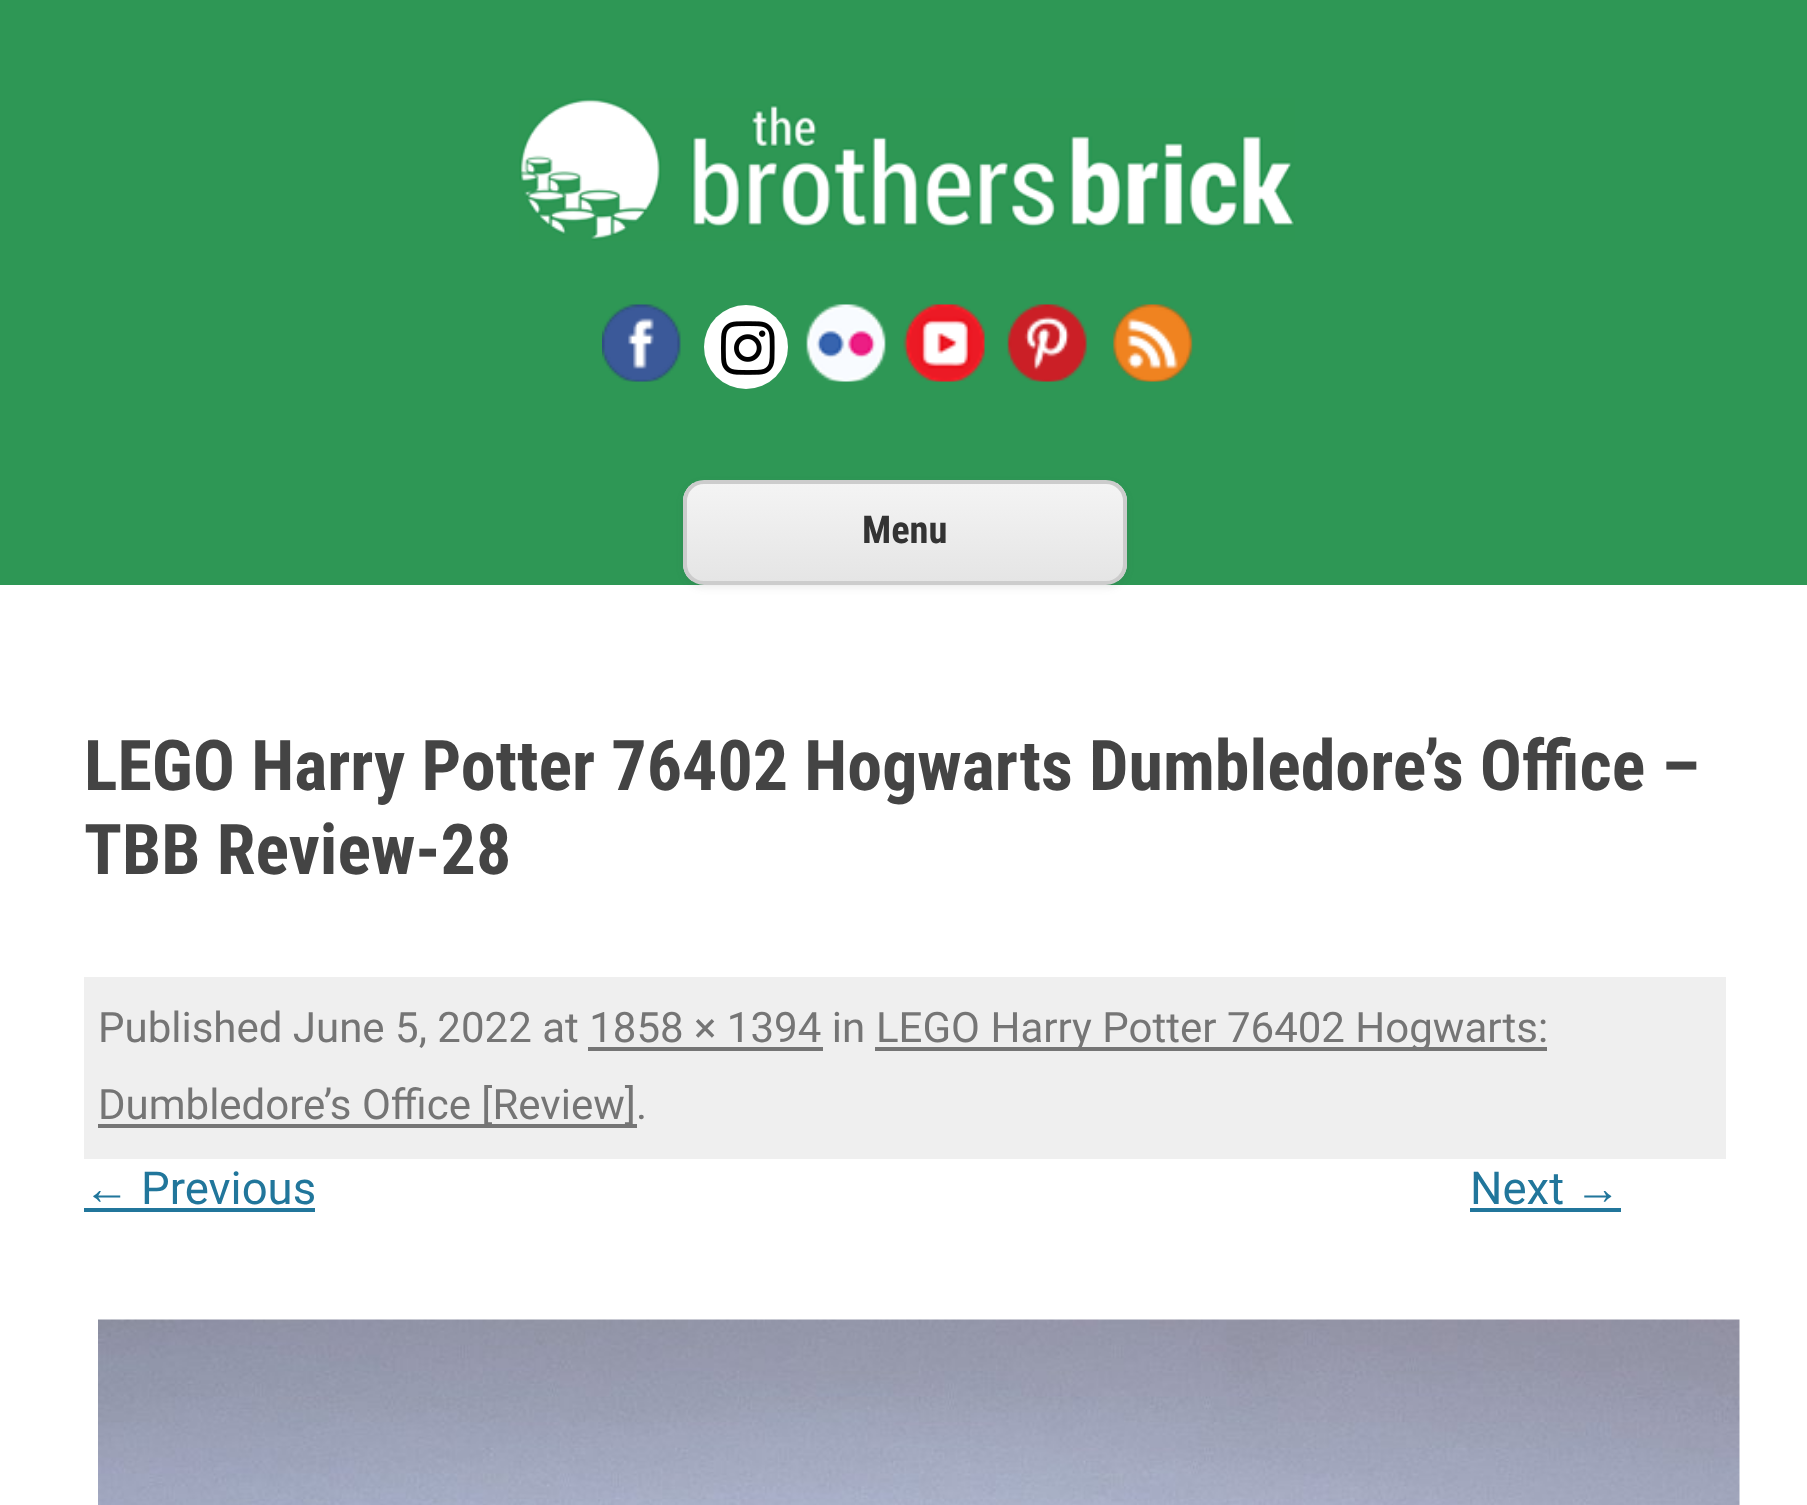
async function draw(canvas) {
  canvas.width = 1807
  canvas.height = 1505
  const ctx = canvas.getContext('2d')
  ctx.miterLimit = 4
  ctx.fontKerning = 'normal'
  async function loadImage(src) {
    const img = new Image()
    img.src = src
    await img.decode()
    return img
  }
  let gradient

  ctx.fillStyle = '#fff'
  ctx.fillRect(0, 0, 1807, 1505)
  ctx.fillStyle = '#2e9755'
  ctx.fillRect(0, 0, 1807, 585)
  ctx.drawImage(await loadImage('image0.png'), 519, 98, 776, 143)
  ctx.drawImage(await loadImage('image1.png'), 602, 304, 79, 78)
  ctx.fillStyle = '#fff'
  ctx.beginPath()
  ctx.arc(746, 347, 42, 0, 2 * Math.PI)
  ctx.fill()
  ctx.drawImage(await loadImage('image2.png'), 721, 321, 54, 54)
  ctx.drawImage(await loadImage('image3.png'), 806, 304, 80, 78)
  ctx.drawImage(await loadImage('image4.png'), 903, 304, 82, 78)
  ctx.drawImage(await loadImage('image5.png'), 1007, 304, 80, 78)
  ctx.drawImage(await loadImage('image6.png'), 1113, 304, 80, 78)
  ctx.fillStyle = '#4040401a'
  ctx.filter = 'blur(3.5px)'
  ctx.beginPath()
  ctx.roundRect(683, 483, 444, 105, 21)
  ctx.fill()
  ctx.filter = 'none'
  ctx.save()
  ctx.beginPath()
  ctx.roundRect(683, 480, 444, 105, 21)
  ctx.clip()
  gradient = ctx.createLinearGradient(905, 483, 905, 581)
  gradient.addColorStop(0, '#f4f4f4')
  gradient.addColorStop(1, '#e5e5e5')
  ctx.fillStyle = gradient
  ctx.fillRect(683, 483, 444, 98)
  ctx.restore()
  ctx.beginPath()
  ctx.roundRect(685, 482, 440, 101, 19)
  ctx.strokeStyle = '#ccc'
  ctx.lineWidth = 4
  ctx.stroke()
  ctx.font = 'bold 38.5px Roboto Condensed'
  ctx.fillStyle = '#333'
  ctx.fillText('Menu', 862, 543)
  ctx.font = 'bold 70px Roboto Condensed'
  ctx.fillStyle = '#444'
  ctx.fillText('LEGO Harry Potter 76402 Hogwarts Dumbledore’s Office –', 84, 790)
  ctx.fillText('TBB Review-28', 84, 874)
  ctx.fillStyle = '#efefef'
  ctx.fillRect(84, 977, 1642, 182)
  ctx.font = '42px Roboto'
  ctx.fillStyle = '#757575'
  ctx.fillText('Published June 5, 2022 at 1858 × 1394 in', 98, 1042)
  ctx.fillRect(875, 1047, 672, 4)
  ctx.fillText('LEGO Harry Potter 76402 Hogwarts:', 876, 1042)
  ctx.fillRect(588, 1047, 235, 4)
  ctx.fillRect(98, 1124, 539, 4)
  ctx.fillText('Dumbledore’s Office [Review].', 98, 1119)
  ctx.font = '45.5px Liberation Sans'
  ctx.fillStyle = '#21769b'
  ctx.fillText('←', 84, 1204)
  ctx.fillRect(84, 1208, 231, 4)
  ctx.font = '45.5px Roboto'
  ctx.fillText('Previous', 141, 1204)
  ctx.fillText('Next', 1470, 1204)
  ctx.font = '45.5px Liberation Sans'
  ctx.fillText('→', 1575, 1204)
  ctx.fillRect(1470, 1208, 151, 4)
  ctx.drawImage(await loadImage('image7.png'), 98, 1319, 1642, 186)
}

draw(document.querySelector('canvas'))
